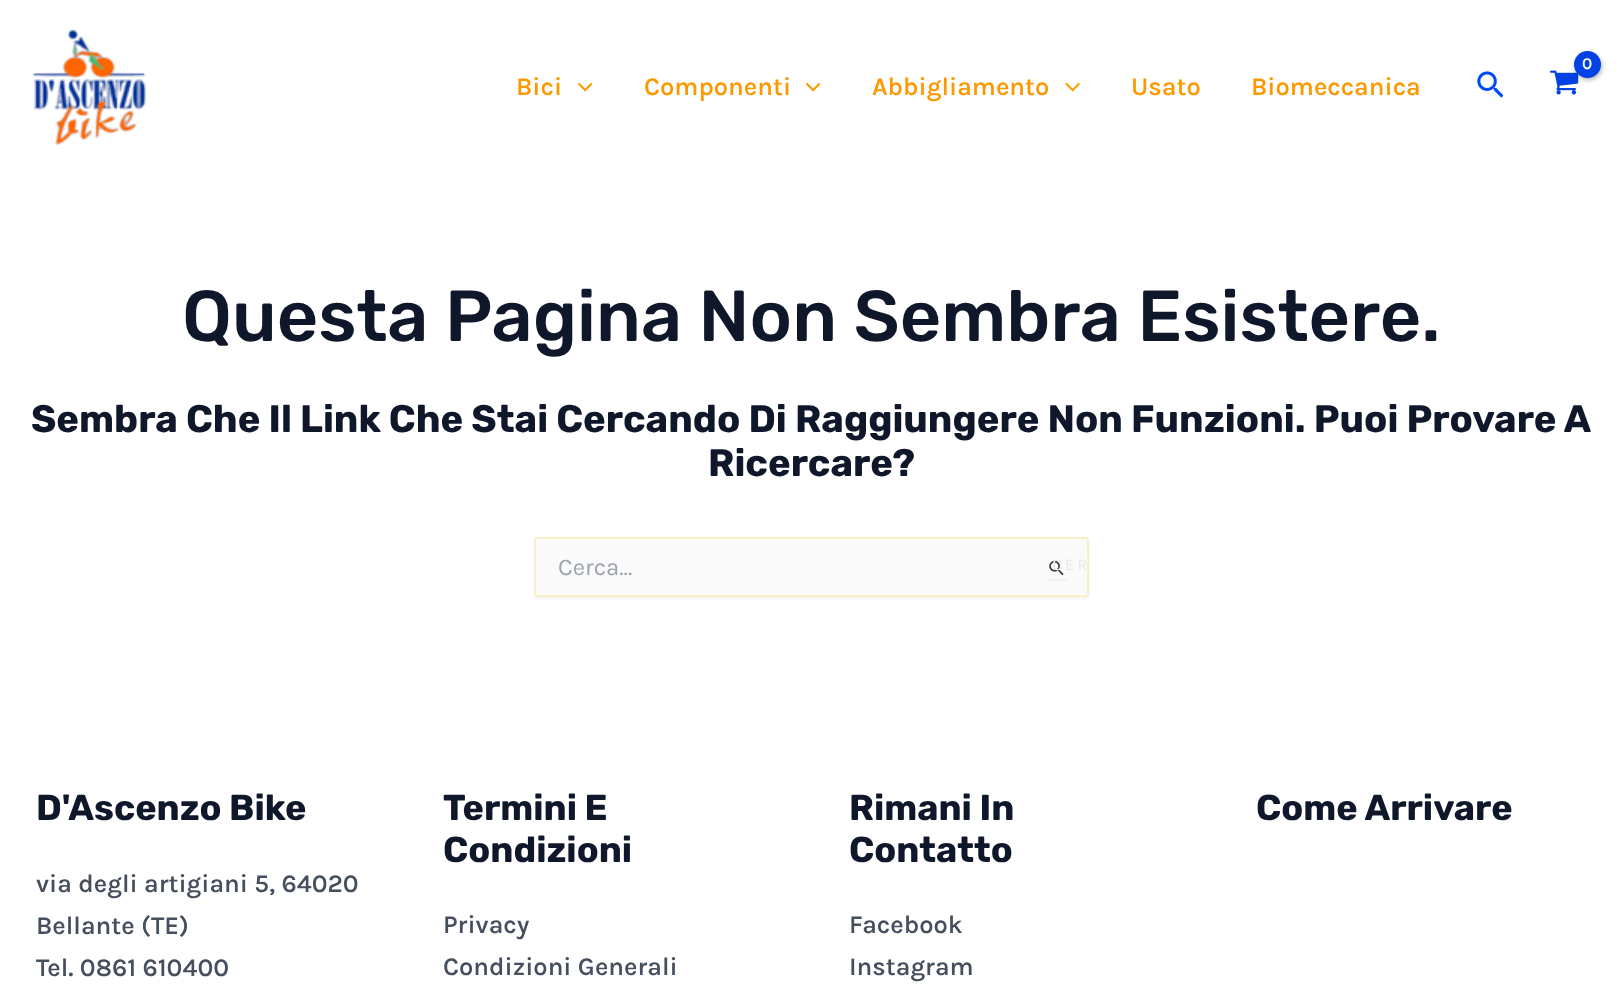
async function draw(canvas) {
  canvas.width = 1623
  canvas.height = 993
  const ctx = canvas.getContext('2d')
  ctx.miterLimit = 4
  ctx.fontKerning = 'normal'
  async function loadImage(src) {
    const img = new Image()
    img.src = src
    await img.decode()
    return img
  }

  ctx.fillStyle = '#fff'
  ctx.fillRect(0, 0, 1623, 993)
  ctx.drawImage(await loadImage('image0.png'), 32, 29, 114, 117)
  ctx.drawImage(await loadImage('image1.png'), 1550, 70, 29, 25)
  ctx.fillStyle = '#0000004d'
  ctx.filter = 'blur(2px)'
  ctx.beginPath()
  ctx.roundRect(1575, 53, 27, 27, 13.5)
  ctx.fill()
  ctx.filter = 'none'
  ctx.fillStyle = '#0242e4'
  ctx.beginPath()
  ctx.arc(1587.5, 64.5, 13.5, 0, 2 * Math.PI)
  ctx.fill()
  ctx.letterSpacing = '-1px'
  ctx.font = '600 16.5px Karla'
  ctx.fillStyle = '#fff'
  ctx.fillText('0', 1582, 69)
  ctx.letterSpacing = '0px'
  ctx.font = '600 25.5px Karla'
  ctx.fillStyle = '#fd9800'
  ctx.fillText('Bici', 516, 95)
  ctx.drawImage(await loadImage('image2.png'), 578, 82, 15, 10)
  ctx.fillText('Componenti', 644, 95)
  ctx.drawImage(await loadImage('image2.png'), 806, 82, 15, 10)
  ctx.fillText('Abbigliamento', 872, 95)
  ctx.drawImage(await loadImage('image3.png'), 1065, 82, 15, 10)
  ctx.fillText('Usato', 1131, 95)
  ctx.fillText('Biomeccanica', 1251, 95)
  ctx.drawImage(await loadImage('image4.png'), 1477, 71, 26, 27)
  ctx.font = '500 72px Rubik'
  ctx.fillStyle = '#0f172a'
  ctx.fillText('Questa Pagina Non Sembra Esistere.', 182, 341)
  ctx.font = 'bold 38.25px Rubik'
  ctx.fillText('Sembra Che Il Link Che Stai Cercando Di Raggiungere Non Funzioni. Puoi Provare A', 31, 432)
  ctx.fillText('Ricercare?', 708, 476)
  ctx.fillStyle = '#0000000d'
  ctx.filter = 'blur(1.5px)'
  ctx.beginPath()
  ctx.roundRect(534, 539, 555, 60, 3)
  ctx.fill()
  ctx.filter = 'none'
  ctx.fillStyle = '#fafafa'
  ctx.beginPath()
  ctx.roundRect(535, 538, 553, 58, 2)
  ctx.fill()
  ctx.strokeStyle = '#f9f0c8'
  ctx.lineWidth = 2
  ctx.stroke()
  ctx.font = '24px Karla'
  ctx.fillStyle = '#9ca3af'
  ctx.fillText('Cerca...', 558, 575)
  ctx.save()
  ctx.beginPath()
  ctx.rect(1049, 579, 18, 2)
  ctx.clip()
  ctx.fillStyle = '#0000000d'
  ctx.filter = 'blur(1.5px)'
  ctx.beginPath()
  ctx.rect(1049, 557, 18, 24)
  ctx.fill()
  ctx.filter = 'none'
  ctx.restore()
  ctx.drawImage(await loadImage('image5.png'), 1049, 560, 15, 16)
  ctx.letterSpacing = '3px'
  ctx.font = '16.5px Karla'
  ctx.fillStyle = '#e8e8e8'
  ctx.fillText('CER', 1052, 570)
  ctx.letterSpacing = '0px'
  ctx.font = 'bold 36px Rubik'
  ctx.fillStyle = '#0f172a'
  ctx.fillText('D\'Ascenzo Bike', 36, 820)
  ctx.font = '600 25.5px Karla'
  ctx.fillStyle = '#454f5e'
  ctx.fillText('via degli artigiani 5, 64020', 36, 892)
  ctx.fillText('Bellante (TE)', 36, 934)
  ctx.fillText('Tel. 0861 610400', 36, 976)
  ctx.font = 'bold 36px Rubik'
  ctx.fillStyle = '#0f172a'
  ctx.fillText('Termini E', 443, 820)
  ctx.fillText('Condizioni', 443, 862)
  ctx.font = '600 25.5px Karla'
  ctx.fillStyle = '#454f5e'
  ctx.fillText('Privacy', 443, 933)
  ctx.fillText('Condizioni Generali', 443, 975)
  ctx.font = 'bold 36px Rubik'
  ctx.fillStyle = '#0f172a'
  ctx.fillText('Rimani In', 849, 820)
  ctx.fillText('Contatto', 849, 862)
  ctx.font = '600 25.5px Karla'
  ctx.fillStyle = '#454f5e'
  ctx.fillText('Facebook', 849, 933)
  ctx.fillText('Instagram', 849, 975)
  ctx.font = 'bold 36px Rubik'
  ctx.fillStyle = '#0f172a'
  ctx.fillText('Come Arrivare', 1256, 820)
}

draw(document.querySelector('canvas'))
